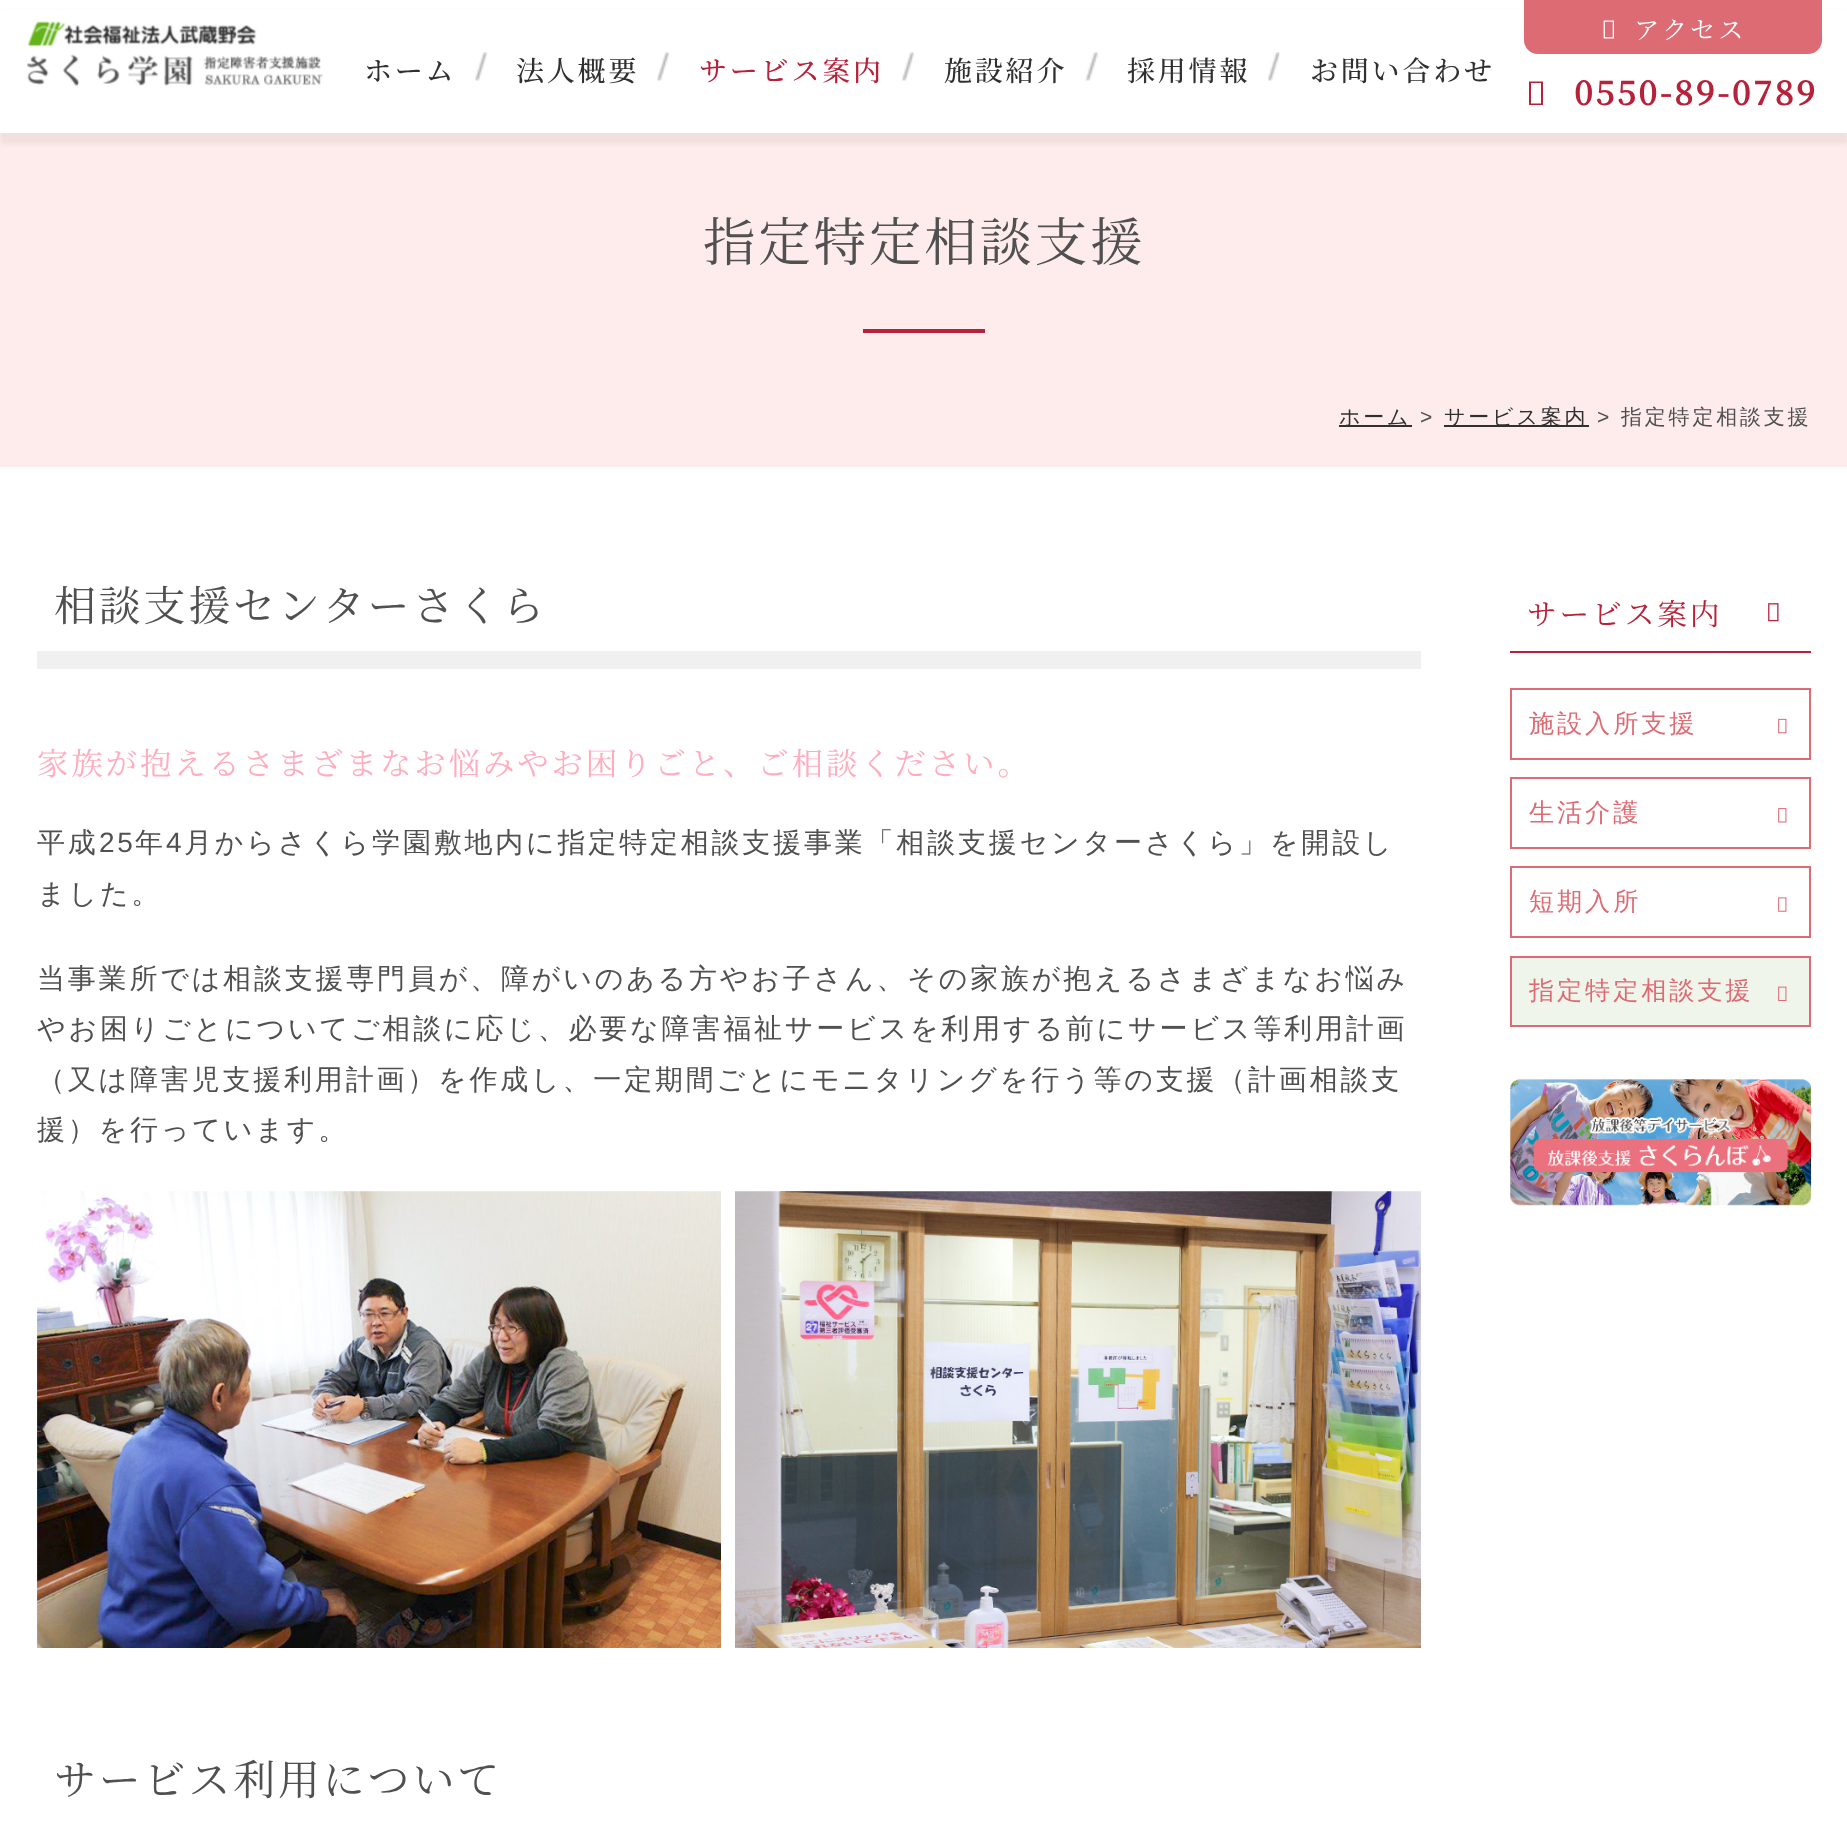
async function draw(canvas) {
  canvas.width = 1847
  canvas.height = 1822
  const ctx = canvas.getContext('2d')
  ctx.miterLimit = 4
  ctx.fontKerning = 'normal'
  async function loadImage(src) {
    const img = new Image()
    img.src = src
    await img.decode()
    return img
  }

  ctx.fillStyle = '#fff'
  ctx.fillRect(0, 0, 1847, 1822)
  ctx.fillStyle = '#feeced'
  ctx.fillRect(0, 133, 1847, 334)
  ctx.fillStyle = '#0000000d'
  ctx.filter = 'blur(2.5px)'
  ctx.beginPath()
  ctx.rect(0, 11, 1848, 133)
  ctx.fill()
  ctx.filter = 'none'
  ctx.fillStyle = '#fff'
  ctx.fillRect(0, 9, 1847, 124)
  ctx.drawImage(await loadImage('image0.png'), 27, 21, 296, 66)
  ctx.drawImage(await loadImage('image1.png'), 474, 52, 14, 29)
  ctx.letterSpacing = '2.8px'
  ctx.font = '500 28px Noto Serif JP'
  ctx.fillStyle = '#313030'
  ctx.fillText('ホーム', 364, 81)
  ctx.drawImage(await loadImage('image2.png'), 656, 52, 13, 29)
  ctx.fillText('法人概要', 516, 81)
  ctx.drawImage(await loadImage('image3.png'), 901, 52, 14, 29)
  ctx.fillStyle = '#b7223b'
  ctx.fillText('サービス案内', 699, 81)
  ctx.drawImage(await loadImage('image4.png'), 1085, 52, 13, 29)
  ctx.fillStyle = '#313030'
  ctx.fillText('施設紹介', 944, 81)
  ctx.drawImage(await loadImage('image5.png'), 1267, 52, 13, 29)
  ctx.fillText('採用情報', 1127, 81)
  ctx.fillText('お問い合わせ', 1310, 81)
  ctx.fillStyle = '#dd6b74'
  ctx.beginPath()
  ctx.roundRect(1524, 0, 298, 54, [0, 0, 14, 14])
  ctx.fill()
  ctx.drawImage(await loadImage('image6.png'), 1603, 20, 11, 19)
  ctx.font = '25.25px Noto Serif JP'
  ctx.fillStyle = '#fff'
  ctx.fillText('アクセス', 1634, 39)
  ctx.fillStyle = '#b7223b'
  ctx.beginPath()
  ctx.moveTo(1529, 105)
  ctx.lineTo(1529, 81.5)
  ctx.lineTo(1543, 81.5)
  ctx.lineTo(1543, 105)
  ctx.closePath()
  ctx.moveTo(1531, 103.5)
  ctx.lineTo(1541, 103.5)
  ctx.lineTo(1541, 83)
  ctx.lineTo(1531, 83)
  ctx.closePath()
  ctx.fill()
  ctx.font = 'bold 33.25px Noto Serif JP'
  ctx.fillText('0550-89-0789', 1574, 105)
  ctx.font = '52.5px Noto Serif JP'
  ctx.fillStyle = '#505050'
  ctx.fillText('指定特定相談支援', 703, 261)
  ctx.fillStyle = '#b7223b'
  ctx.fillRect(863, 329, 122, 4)
  ctx.fillStyle = '#313030'
  ctx.fillRect(1339, 425, 73, 2)
  ctx.font = '500 21px WenQuanYi Zen Hei'
  ctx.fillText('ホーム', 1339, 424)
  ctx.font = '21px Liberation Sans'
  ctx.fillStyle = '#505050'
  ctx.fillText('>', 1420, 424)
  ctx.fillStyle = '#313030'
  ctx.fillRect(1444, 425, 145, 2)
  ctx.font = '500 21px WenQuanYi Zen Hei'
  ctx.fillText('サービス案内', 1444, 424)
  ctx.font = '21px Liberation Sans'
  ctx.fillStyle = '#505050'
  ctx.fillText('>', 1597, 424)
  ctx.font = '500 21px WenQuanYi Zen Hei'
  ctx.fillText('指定特定相談支援', 1621, 424)
  ctx.font = '42px Noto Serif JP'
  ctx.fillText('相談支援センターさくら', 54, 621)
  ctx.fillStyle = '#f0f0f0'
  ctx.fillRect(37, 651, 1384, 18)
  ctx.font = '31.5px Noto Serif JP'
  ctx.fillStyle = '#ffacbe'
  ctx.fillText('家族が抱えるさまざまなお悩みやお困りごと、ご相談ください。', 37, 775)
  ctx.font = '500 28px WenQuanYi Zen Hei'
  ctx.fillStyle = '#505050'
  ctx.fillText('平成', 37, 852)
  ctx.font = '28px Liberation Sans'
  ctx.fillText('25', 99, 852)
  ctx.font = '500 28px WenQuanYi Zen Hei'
  ctx.fillText('年', 135, 852)
  ctx.font = '28px Liberation Sans'
  ctx.fillText('4', 166, 852)
  ctx.font = '500 28px WenQuanYi Zen Hei'
  ctx.fillText('月からさくら学園敷地内に指定特定相談支援事業「相談支援センターさくら」を開設し', 184, 852)
  ctx.fillText('ました。', 37, 903)
  ctx.fillText('当事業所では相談支援専門員が、障がいのある方やお子さん、その家族が抱えるさまざまなお悩み', 37, 988)
  ctx.fillText('やお困りごとについてご相談に応じ、必要な障害福祉サービスを利用する前にサービス等利用計画', 37, 1038)
  ctx.fillText('（又は障害児支援利用計画）を作成し、一定期間ごとにモニタリングを行う等の支援（計画相談支', 37, 1089)
  ctx.fillText('援）を行っています。', 37, 1139)
  ctx.drawImage(await loadImage('image7.png'), 37, 1191, 684, 457)
  ctx.drawImage(await loadImage('image8.png'), 735, 1191, 686, 457)
  ctx.font = '42px Noto Serif JP'
  ctx.fillText('サービス利用について', 54, 1795)
  ctx.fillStyle = '#b7223b'
  ctx.fillRect(1510, 651, 301, 2)
  ctx.font = '29.75px Noto Serif JP'
  ctx.fillText('サービス案内', 1527, 625)
  ctx.drawImage(await loadImage('image9.png'), 1768, 603, 11, 19)
  ctx.strokeStyle = '#dd6b74'
  ctx.lineWidth = 2
  ctx.strokeRect(1511, 689, 299, 70)
  ctx.font = '500 25.25px WenQuanYi Zen Hei'
  ctx.fillStyle = '#dd6b74'
  ctx.fillText('施設入所支援', 1529, 732)
  ctx.drawImage(await loadImage('image10.png'), 1778, 718, 9, 16)
  ctx.strokeRect(1511, 778, 299, 70)
  ctx.fillText('生活介護', 1529, 821)
  ctx.drawImage(await loadImage('image11.png'), 1778, 808, 9, 15)
  ctx.strokeRect(1511, 867, 299, 70)
  ctx.fillText('短期入所', 1529, 910)
  ctx.drawImage(await loadImage('image12.png'), 1778, 897, 9, 15)
  ctx.fillStyle = '#f0f5eb'
  ctx.beginPath()
  ctx.rect(1511, 957, 299, 69)
  ctx.fill()
  ctx.stroke()
  ctx.fillStyle = '#dd6b74'
  ctx.fillText('指定特定相談支援', 1529, 999)
  ctx.drawImage(await loadImage('image13.png'), 1778, 986, 9, 15)
  ctx.drawImage(await loadImage('image14.png'), 1510, 1079, 302, 127)
}

draw(document.querySelector('canvas'))
